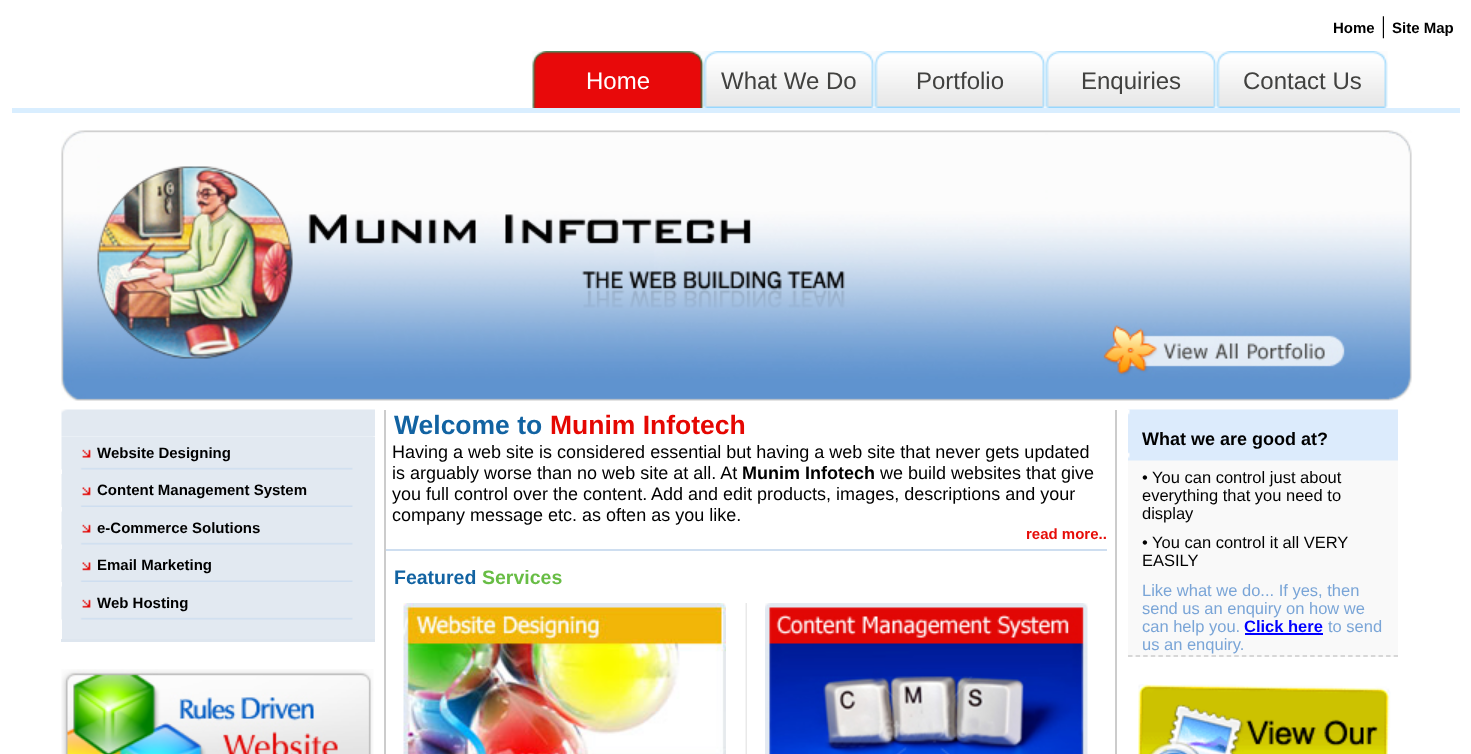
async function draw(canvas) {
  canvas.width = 1471
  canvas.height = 754
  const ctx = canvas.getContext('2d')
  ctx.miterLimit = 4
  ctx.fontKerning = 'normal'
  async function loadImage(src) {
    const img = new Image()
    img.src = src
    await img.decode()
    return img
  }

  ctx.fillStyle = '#fff'
  ctx.fillRect(0, 0, 1471, 754)
  ctx.font = 'bold 15px Liberation Sans'
  ctx.fillStyle = '#000'
  ctx.fillText('Home', 1333, 33)
  ctx.font = '24px Liberation Serif'
  ctx.fillText('|', 1381, 33)
  ctx.font = 'bold 15px Liberation Sans'
  ctx.fillText('Site Map', 1392, 33)
  ctx.drawImage(await loadImage('image0.png'), 532, 51, 172, 57)
  ctx.font = '24px Liberation Sans'
  ctx.fillStyle = '#fff'
  ctx.fillText('Home', 586, 89)
  ctx.drawImage(await loadImage('image1.png'), 703, 51, 172, 57)
  ctx.fillStyle = '#41413f'
  ctx.fillText('What We Do', 721, 89)
  ctx.drawImage(await loadImage('image2.png'), 874, 51, 172, 57)
  ctx.fillText('Portfolio', 916, 89)
  ctx.drawImage(await loadImage('image3.png'), 1045, 51, 172, 57)
  ctx.fillText('Enquiries', 1081, 89)
  ctx.drawImage(await loadImage('image2.png'), 1216, 51, 172, 57)
  ctx.fillText('Contact Us', 1243, 89)
  ctx.fillStyle = '#d9eeff'
  ctx.fillRect(12, 108, 1448, 5)
  ctx.drawImage(await loadImage('image4.png'), 61, 130, 1351, 271)
  ctx.fillStyle = '#ccc'
  ctx.fillRect(384, 410, 2, 344)
  ctx.fillStyle = '#e2e9f1'
  ctx.fillRect(62, 437, 313, 202)
  ctx.drawImage(await loadImage('image6.png'), 61, 436, 313, 34)
  ctx.drawImage(await loadImage('image5.png'), 61, 409, 314, 28)
  ctx.font = 'bold 15px Liberation Sans'
  ctx.fillStyle = '#000'
  ctx.fillText('Website Designing', 97, 458)
  ctx.drawImage(await loadImage('image7.png'), 61, 474, 292, 33)
  ctx.fillText('Content Management System', 97, 495)
  ctx.drawImage(await loadImage('image8.png'), 61, 511, 292, 34)
  ctx.fillText('e-Commerce Solutions', 97, 533)
  ctx.drawImage(await loadImage('image7.png'), 61, 549, 292, 33)
  ctx.fillText('Email Marketing', 97, 570)
  ctx.drawImage(await loadImage('image8.png'), 61, 586, 292, 34)
  ctx.fillText('Web Hosting', 97, 608)
  ctx.fillStyle = '#dee6ef'
  ctx.fillRect(61, 639, 314, 3)
  ctx.drawImage(await loadImage('image9.png'), 61, 669, 313, 85)
  ctx.font = 'bold 26.5px Liberation Sans'
  ctx.fillStyle = '#1263a2'
  ctx.fillText('Welcome to', 394, 434)
  ctx.fillStyle = '#e50702'
  ctx.fillText('Munim Infotech', 550, 434)
  ctx.font = '18px Liberation Sans'
  ctx.fillStyle = '#000'
  ctx.fillText('Having a web site is considered essential but having a web site that never gets updated', 392, 458)
  ctx.fillText('is arguably worse than no web site at all. At', 392, 479)
  ctx.font = 'bold 18px Liberation Sans'
  ctx.fillText('Munim Infotech', 742, 479)
  ctx.font = '18px Liberation Sans'
  ctx.fillText('we build websites that give', 880, 479)
  ctx.fillText('you full control over the content.', 392, 500)
  ctx.fillText('Add and edit products, images, descriptions and your', 651, 500)
  ctx.fillText('company message etc. as often as you like.', 392, 521)
  ctx.font = 'bold 15px Liberation Sans'
  ctx.fillStyle = '#e60d08'
  ctx.fillText('read more..', 1026, 539)
  ctx.fillStyle = '#cedef0'
  ctx.fillRect(386, 549, 721, 2)
  ctx.font = 'bold 19.5px Liberation Sans'
  ctx.fillStyle = '#1263a2'
  ctx.fillText('Featured', 394, 584)
  ctx.fillStyle = '#68bd45'
  ctx.fillText('Services', 482, 584)
  ctx.drawImage(await loadImage('image10.png'), 403, 603, 323, 151)
  ctx.drawImage(await loadImage('image11.png'), 745, 603, 2, 151)
  ctx.drawImage(await loadImage('image12.png'), 765, 603, 323, 151)
  ctx.fillStyle = '#ccc'
  ctx.fillRect(1115, 410, 2, 344)
  ctx.fillStyle = '#f9f9f9'
  ctx.fillRect(1128, 460, 270, 197)
  ctx.drawImage(await loadImage('image13.png'), 1128, 409, 270, 52)
  ctx.font = 'bold 18px Liberation Sans'
  ctx.fillStyle = '#000'
  ctx.fillText('What we are good at?', 1142, 445)
  ctx.font = '16.5px Liberation Sans'
  ctx.fillText('• You can control just about', 1142, 483)
  ctx.fillText('everything that you need to', 1142, 501)
  ctx.fillText('display', 1142, 519)
  ctx.fillText('• You can control it all VERY', 1142, 548)
  ctx.fillText('EASILY', 1142, 566)
  ctx.fillStyle = '#7aa5d7'
  ctx.fillText('Like what we do... If yes, then', 1142, 596)
  ctx.fillText('send us an enquiry on how we', 1142, 614)
  ctx.fillText('can help you.', 1142, 632)
  ctx.font = 'bold 16.5px Liberation Sans'
  ctx.fillStyle = '#00f'
  ctx.fillText('Click here', 1244, 632)
  ctx.fillRect(1245, 633, 78, 2)
  ctx.font = '16.5px Liberation Sans'
  ctx.fillStyle = '#7aa5d7'
  ctx.fillText('to send', 1328, 632)
  ctx.fillText('us an enquiry.', 1142, 650)
  ctx.beginPath()
  ctx.moveTo(1128, 656)
  ctx.lineTo(1398, 656)
  ctx.strokeStyle = '#ccc'
  ctx.lineWidth = 1.5
  ctx.setLineDash([4.5, 3.09])
  ctx.stroke()
  ctx.drawImage(await loadImage('image14.png'), 1138, 684, 253, 70)
}

draw(document.querySelector('canvas'))
